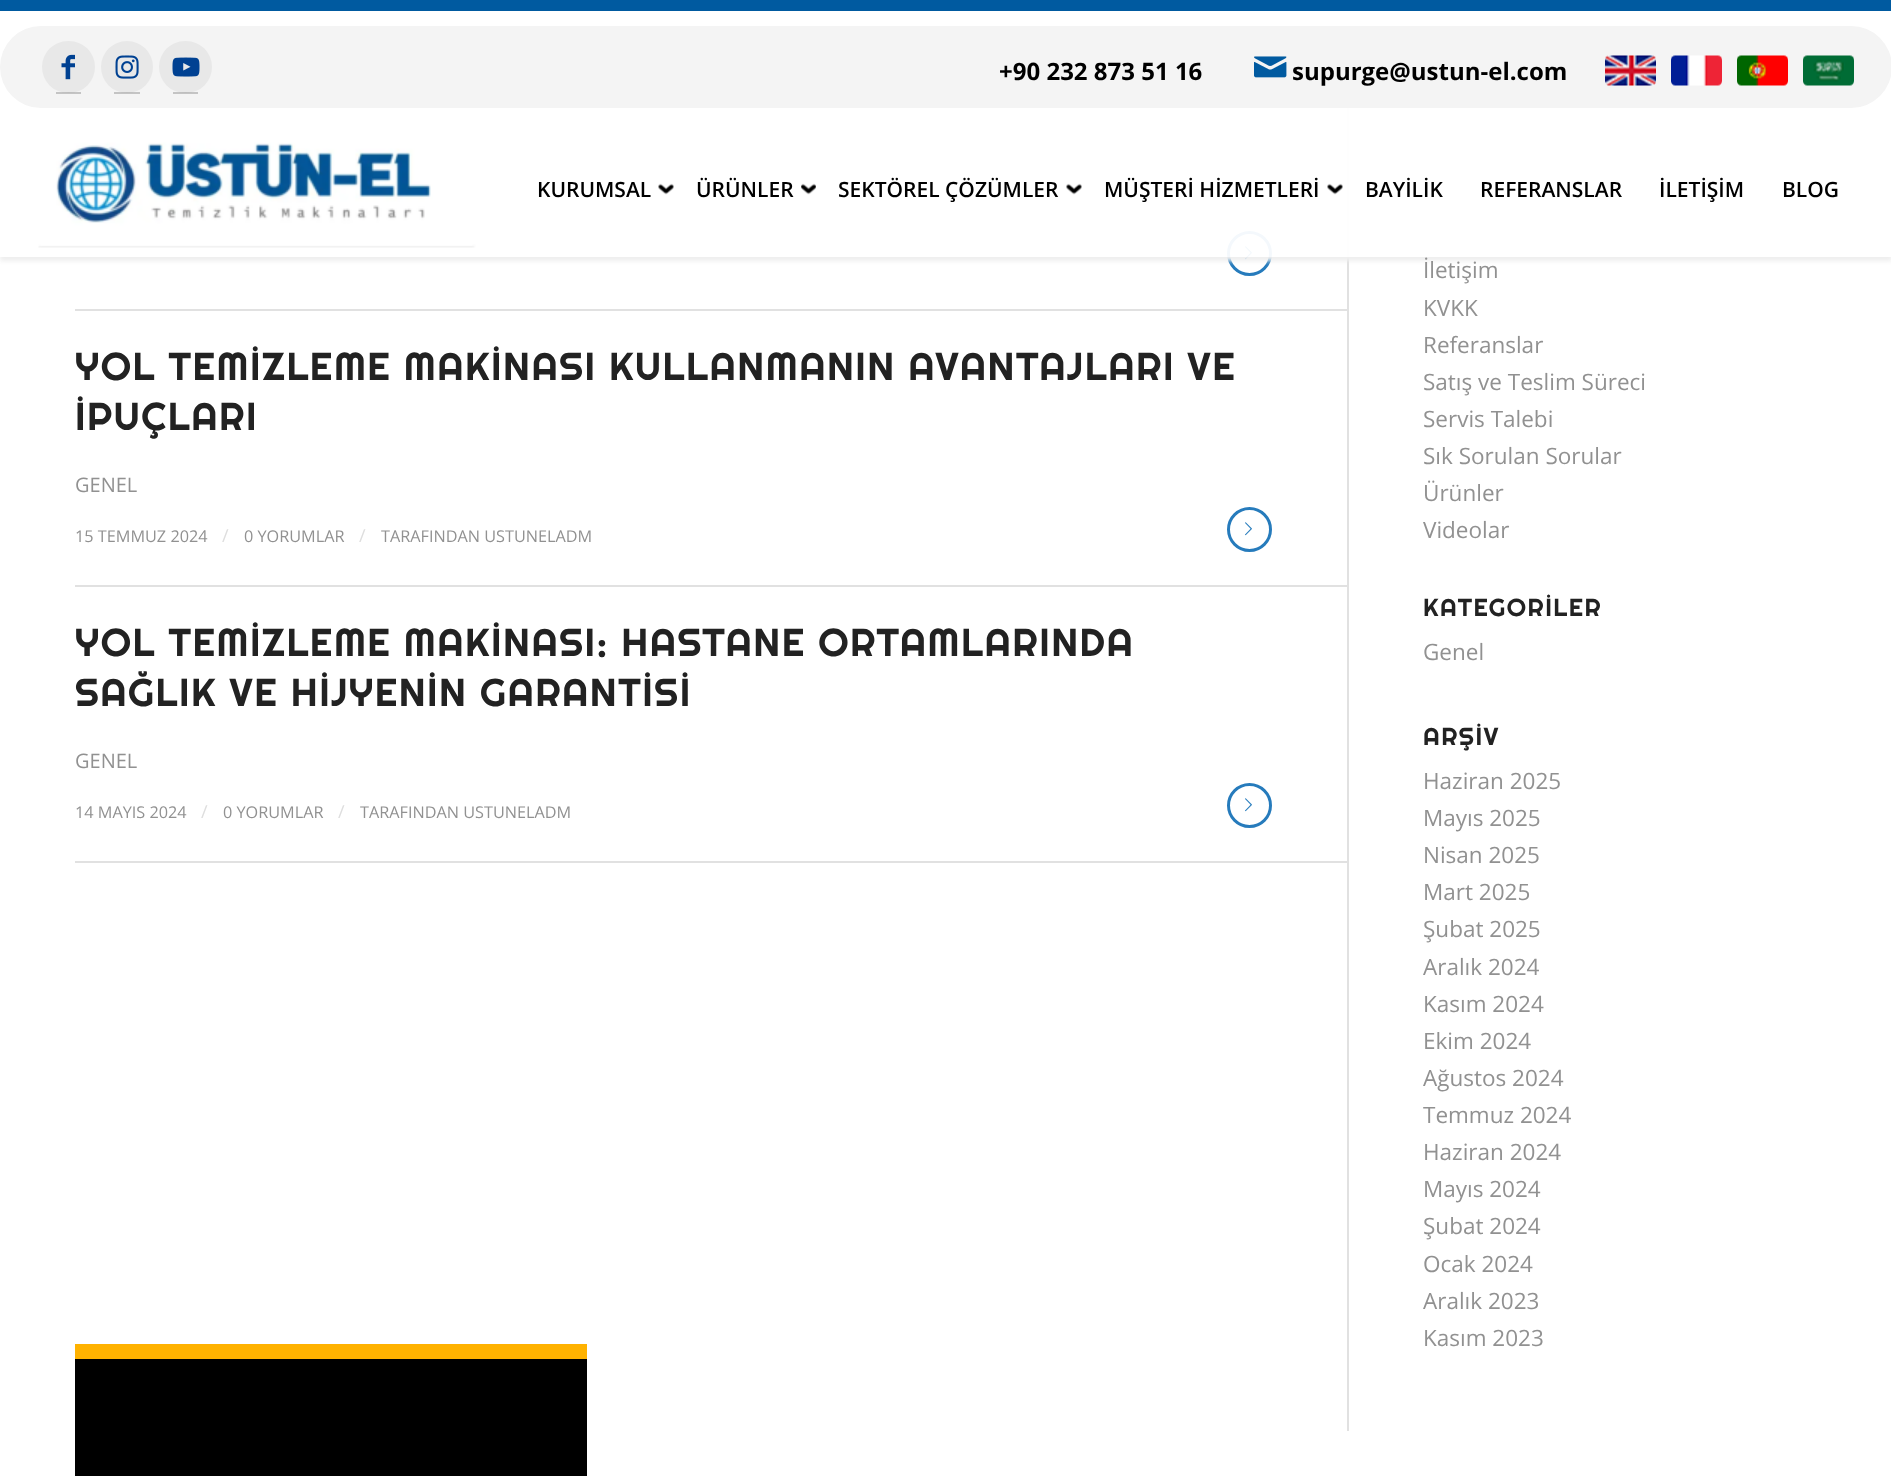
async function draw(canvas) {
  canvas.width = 1891
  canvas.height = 1476
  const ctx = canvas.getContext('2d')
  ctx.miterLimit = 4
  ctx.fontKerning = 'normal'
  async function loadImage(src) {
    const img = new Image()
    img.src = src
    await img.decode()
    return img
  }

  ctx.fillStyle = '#fff'
  ctx.fillRect(0, 0, 1891, 1476)
  ctx.fillStyle = '#005aa0'
  ctx.fillRect(0, 0, 1891, 11)
  ctx.fillStyle = '#f4f4f4'
  ctx.beginPath()
  ctx.roundRect(0, 26, 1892, 82, 41)
  ctx.fill()
  ctx.fillStyle = '#e8e8e8'
  ctx.beginPath()
  ctx.roundRect(42, 41, 53, 52, 26)
  ctx.fill()
  ctx.fillStyle = '#80808069'
  ctx.fillRect(56, 92, 25, 2)
  ctx.drawImage(await loadImage('image0.png'), 61, 54, 14, 26)
  ctx.fillStyle = '#e8e8e8'
  ctx.beginPath()
  ctx.arc(127, 67, 26, 0, 2 * Math.PI)
  ctx.fill()
  ctx.fillStyle = '#80808069'
  ctx.fillRect(114, 92, 26, 2)
  ctx.drawImage(await loadImage('image1.png'), 115, 55, 24, 24)
  ctx.fillStyle = '#e8e8e8'
  ctx.beginPath()
  ctx.roundRect(159, 41, 53, 52, 26)
  ctx.fill()
  ctx.fillStyle = '#80808069'
  ctx.fillRect(173, 92, 25, 2)
  ctx.drawImage(await loadImage('image2.png'), 172, 57, 28, 20)
  ctx.font = 'bold 24px Open Sans'
  ctx.fillStyle = '#000'
  ctx.fillText('+90 232 873 51 16', 999, 80)
  ctx.drawImage(await loadImage('image3.png'), 1254, 56, 33, 22)
  ctx.fillText('supurge@ustun-el.com', 1292, 80)
  ctx.drawImage(await loadImage('image4.png'), 1605, 55, 51, 31)
  ctx.drawImage(await loadImage('image5.png'), 1671, 55, 51, 31)
  ctx.drawImage(await loadImage('image6.png'), 1737, 55, 51, 31)
  ctx.drawImage(await loadImage('image7.png'), 1803, 55, 51, 31)
  ctx.beginPath()
  ctx.arc(1249.5, 253.5, 21, 0, 2 * Math.PI)
  ctx.strokeStyle = '#267bbc'
  ctx.lineWidth = 3
  ctx.stroke()
  ctx.drawImage(await loadImage('image11.png'), 1245, 246, 7, 14)
  ctx.fillStyle = '#e1e1e1'
  ctx.fillRect(1347, 108, 2, 1323)
  ctx.fillStyle = '#fffffff2'
  ctx.fillRect(1227, 108, 122, 149)
  ctx.save()
  ctx.beginPath()
  ctx.moveTo(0, 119)
  ctx.lineTo(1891, 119)
  ctx.lineTo(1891, 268)
  ctx.lineTo(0, 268)
  ctx.closePath()
  ctx.moveTo(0, 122)
  ctx.lineTo(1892, 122)
  ctx.lineTo(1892, 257)
  ctx.lineTo(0, 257)
  ctx.closePath()
  ctx.clip('evenodd')
  ctx.fillStyle = '#eee'
  ctx.filter = 'blur(2px)'
  ctx.beginPath()
  ctx.rect(0, 126, 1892, 135)
  ctx.fill()
  ctx.filter = 'none'
  ctx.restore()
  ctx.drawImage(await loadImage('image8.png'), 38, 121, 442, 127)
  ctx.font = '600 21px Open Sans'
  ctx.fillStyle = '#000'
  ctx.fillText('KURUMSAL', 537, 197)
  ctx.drawImage(await loadImage('image9.png'), 658, 183, 16, 12)
  ctx.fillText('ÜRÜNLER', 696, 197)
  ctx.drawImage(await loadImage('image10.png'), 801, 183, 15, 12)
  ctx.fillText('SEKTÖREL ÇÖZÜMLER', 838, 197)
  ctx.drawImage(await loadImage('image9.png'), 1066, 183, 16, 12)
  ctx.fillText('MÜŞTERİ HİZMETLERİ', 1104, 197)
  ctx.drawImage(await loadImage('image9.png'), 1327, 183, 16, 12)
  ctx.fillText('BAYİLİK', 1365, 197)
  ctx.fillText('REFERANSLAR', 1480, 197)
  ctx.fillText('İLETİŞİM', 1659, 197)
  ctx.fillText('BLOG', 1782, 197)
  ctx.fillStyle = '#e1e1e1'
  ctx.fillRect(75, 309, 1272, 2)
  ctx.fillRect(75, 585, 1272, 2)
  ctx.letterSpacing = '1.5px'
  ctx.font = '39px Righteous'
  ctx.fillStyle = '#222'
  ctx.fillText('YOL TEMİZLEME MAKİNASI KULLANMANIN AVANTAJLARI VE', 75, 380)
  ctx.fillText('İPUÇLARI', 75, 430)
  ctx.letterSpacing = '0px'
  ctx.font = '20px Open Sans'
  ctx.fillStyle = '#919191'
  ctx.fillText('GENEL', 75, 492)
  ctx.font = '16.25px Open Sans'
  ctx.fillText('15 TEMMUZ 2024', 75, 542)
  ctx.font = '18px Open Sans'
  ctx.fillStyle = '#dedede'
  ctx.fillText('/', 222, 542)
  ctx.font = '16.25px Open Sans'
  ctx.fillStyle = '#919191'
  ctx.fillText('0 YORUMLAR', 244, 542)
  ctx.font = '18px Open Sans'
  ctx.fillStyle = '#dedede'
  ctx.fillText('/', 359, 542)
  ctx.font = '16.25px Open Sans'
  ctx.fillStyle = '#919191'
  ctx.fillText('TARAFINDAN USTUNELADM', 381, 542)
  ctx.beginPath()
  ctx.arc(1249.5, 529.5, 21, 0, 2 * Math.PI)
  ctx.stroke()
  ctx.drawImage(await loadImage('image11.png'), 1245, 522, 7, 14)
  ctx.fillStyle = '#e1e1e1'
  ctx.fillRect(75, 861, 1272, 2)
  ctx.letterSpacing = '1.5px'
  ctx.font = '39px Righteous'
  ctx.fillStyle = '#222'
  ctx.fillText('YOL TEMİZLEME MAKİNASI: HASTANE ORTAMLARINDA', 75, 656)
  ctx.fillText('SAĞLIK VE HİJYENİN GARANTİSİ', 75, 706)
  ctx.letterSpacing = '0px'
  ctx.font = '20px Open Sans'
  ctx.fillStyle = '#919191'
  ctx.fillText('GENEL', 75, 768)
  ctx.font = '16.25px Open Sans'
  ctx.fillText('14 MAYIS 2024', 75, 818)
  ctx.font = '18px Open Sans'
  ctx.fillStyle = '#dedede'
  ctx.fillText('/', 201, 818)
  ctx.font = '16.25px Open Sans'
  ctx.fillStyle = '#919191'
  ctx.fillText('0 YORUMLAR', 223, 818)
  ctx.font = '18px Open Sans'
  ctx.fillStyle = '#dedede'
  ctx.fillText('/', 338, 818)
  ctx.font = '16.25px Open Sans'
  ctx.fillStyle = '#919191'
  ctx.fillText('TARAFINDAN USTUNELADM', 360, 818)
  ctx.beginPath()
  ctx.arc(1249.5, 805.5, 21, 0, 2 * Math.PI)
  ctx.stroke()
  ctx.drawImage(await loadImage('image11.png'), 1245, 798, 7, 14)
  ctx.font = '22.5px Open Sans'
  ctx.fillText('İletişim', 1423, 278)
  ctx.fillText('KVKK', 1423, 316)
  ctx.fillText('Referanslar', 1423, 353)
  ctx.fillText('Satış ve Teslim Süreci', 1423, 390)
  ctx.fillText('Servis Talebi', 1423, 427)
  ctx.fillText('Sık Sorulan Sorular', 1423, 464)
  ctx.fillText('Ürünler', 1423, 501)
  ctx.fillText('Videolar', 1423, 538)
  ctx.letterSpacing = '1.5px'
  ctx.font = '24.75px Righteous'
  ctx.fillStyle = '#222'
  ctx.fillText('KATEGORİLER', 1423, 616)
  ctx.letterSpacing = '0px'
  ctx.font = '22.5px Open Sans'
  ctx.fillStyle = '#919191'
  ctx.fillText('Genel', 1423, 660)
  ctx.letterSpacing = '1.5px'
  ctx.font = '24.75px Righteous'
  ctx.fillStyle = '#222'
  ctx.fillText('ARŞİV', 1423, 745)
  ctx.letterSpacing = '0px'
  ctx.font = '22.5px Open Sans'
  ctx.fillStyle = '#919191'
  ctx.fillText('Haziran 2025', 1423, 789)
  ctx.fillText('Mayıs 2025', 1423, 826)
  ctx.fillText('Nisan 2025', 1423, 863)
  ctx.fillText('Mart 2025', 1423, 900)
  ctx.fillText('Şubat 2025', 1423, 937)
  ctx.fillText('Aralık 2024', 1423, 975)
  ctx.fillText('Kasım 2024', 1423, 1012)
  ctx.fillText('Ekim 2024', 1423, 1049)
  ctx.fillText('Ağustos 2024', 1423, 1086)
  ctx.fillText('Temmuz 2024', 1423, 1123)
  ctx.fillText('Haziran 2024', 1423, 1160)
  ctx.fillText('Mayıs 2024', 1423, 1197)
  ctx.fillText('Şubat 2024', 1423, 1234)
  ctx.fillText('Ocak 2024', 1423, 1272)
  ctx.fillText('Aralık 2023', 1423, 1309)
  ctx.fillText('Kasım 2023', 1423, 1346)
  ctx.fillStyle = '#000'
  ctx.fillRect(75, 1359, 512, 117)
  ctx.fillStyle = '#ffb200'
  ctx.fillRect(75, 1344, 512, 15)
}

draw(document.querySelector('canvas'))
